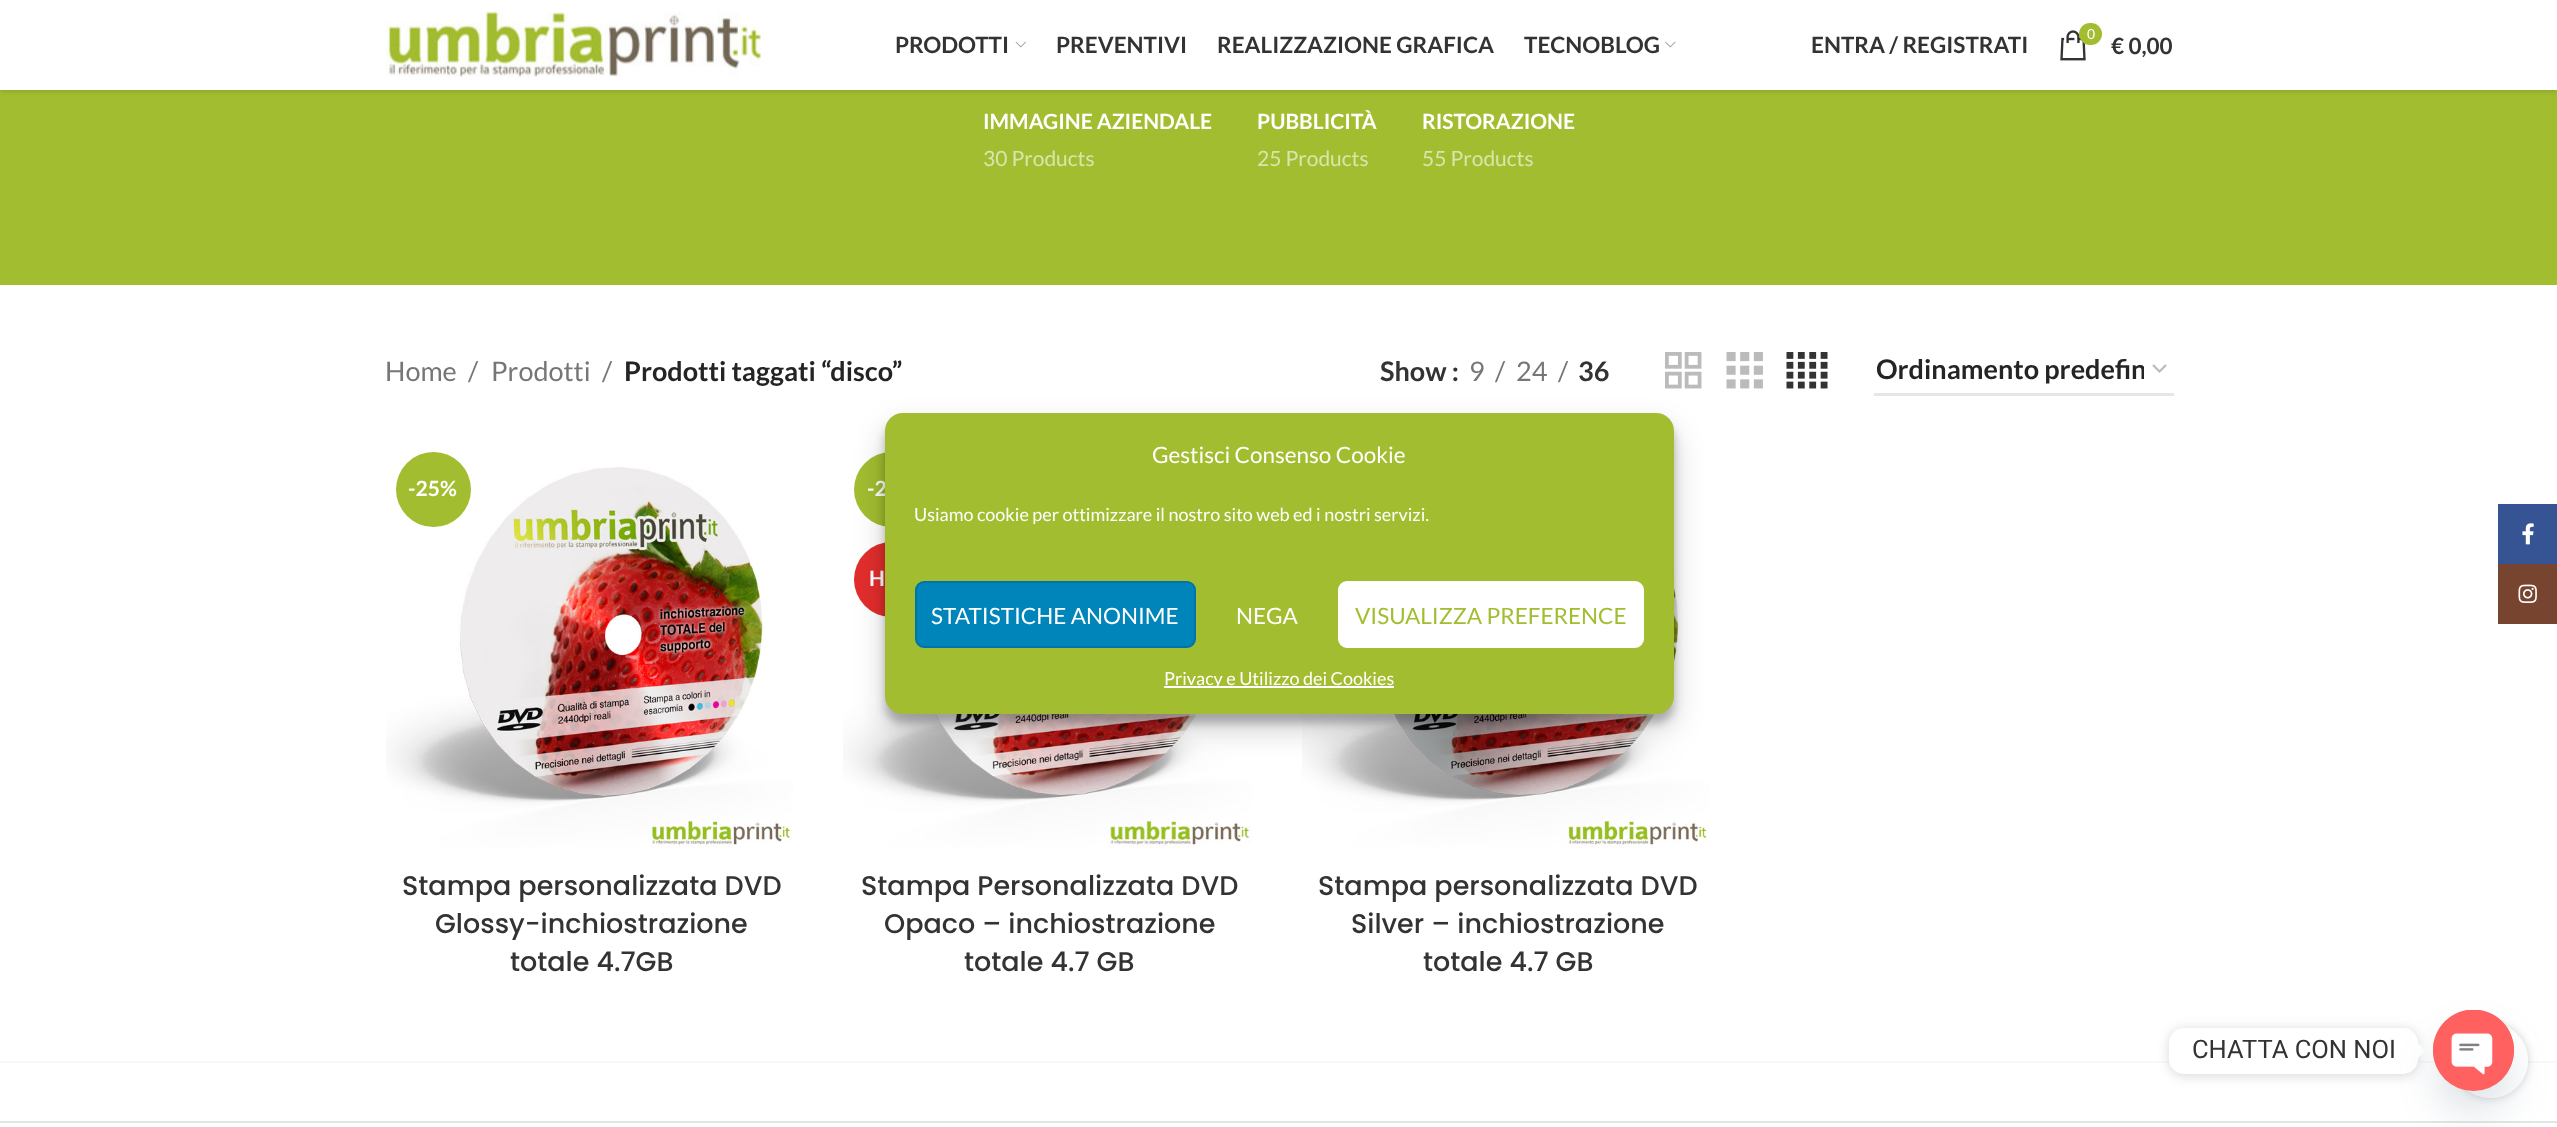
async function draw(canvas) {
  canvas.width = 2557
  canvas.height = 1127
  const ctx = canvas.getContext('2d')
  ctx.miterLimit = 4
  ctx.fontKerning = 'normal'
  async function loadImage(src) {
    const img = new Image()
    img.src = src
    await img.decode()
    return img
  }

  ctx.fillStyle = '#fff'
  ctx.fillRect(0, 0, 2557, 1127)
  ctx.fillStyle = '#a2bd30'
  ctx.fillRect(0, 90, 2557, 195)
  ctx.fillStyle = '#0000001a'
  ctx.filter = 'blur(2px)'
  ctx.beginPath()
  ctx.rect(0, 2, 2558, 90)
  ctx.fill()
  ctx.filter = 'none'
  ctx.fillStyle = '#fff'
  ctx.fillRect(0, 0, 2557, 90)
  ctx.drawImage(await loadImage('image0.png'), 385, 11, 376, 66)
  ctx.font = 'bold 22.5px Lato'
  ctx.fillStyle = '#333'
  ctx.fillText('PRODOTTI', 895, 53)
  ctx.drawImage(await loadImage('image1.png'), 1015, 41, 11, 7)
  ctx.fillText('PREVENTIVI', 1056, 53)
  ctx.fillText('REALIZZAZIONE GRAFICA', 1217, 53)
  ctx.fillText('TECNOBLOG', 1524, 53)
  ctx.drawImage(await loadImage('image2.png'), 1665, 41, 11, 7)
  ctx.fillText('ENTRA / REGISTRATI', 1811, 53)
  ctx.drawImage(await loadImage('image3.png'), 2060, 30, 26, 31)
  ctx.fillStyle = '#a2bd30'
  ctx.beginPath()
  ctx.roundRect(2079, 23, 23, 22, 11)
  ctx.fill()
  ctx.font = '14px Lato'
  ctx.fillStyle = '#fff'
  ctx.fillText('0', 2087, 39)
  ctx.font = 'bold 22.5px Lato'
  ctx.fillStyle = '#333'
  ctx.fillText('€ 0,00', 2111, 54)
  ctx.font = 'bold 21px Lato'
  ctx.fillStyle = '#fff'
  ctx.fillText('IMMAGINE AZIENDALE', 983, 129)
  ctx.font = '21px Lato'
  ctx.fillStyle = '#dae5ac'
  ctx.fillText('30 Products', 983, 166)
  ctx.font = 'bold 21px Lato'
  ctx.fillStyle = '#fff'
  ctx.fillText('PUBBLICITÀ', 1257, 129)
  ctx.font = '21px Lato'
  ctx.fillStyle = '#dae5ac'
  ctx.fillText('25 Products', 1257, 166)
  ctx.font = 'bold 21px Lato'
  ctx.fillStyle = '#fff'
  ctx.fillText('RISTORAZIONE', 1422, 129)
  ctx.font = '21px Lato'
  ctx.fillStyle = '#dae5ac'
  ctx.fillText('55 Products', 1422, 166)
  ctx.font = '27px Lato'
  ctx.fillStyle = '#767676'
  ctx.fillText('Home', 385, 381)
  ctx.fillText('/', 468, 381)
  ctx.fillText('Prodotti', 491, 381)
  ctx.fillText('/', 602, 381)
  ctx.font = 'bold 27px Lato'
  ctx.fillStyle = '#242424'
  ctx.fillText('Prodotti taggati “disco”', 624, 381)
  ctx.fillStyle = '#333'
  ctx.fillText('Show :', 1380, 381)
  ctx.font = '27px Lato'
  ctx.fillStyle = '#767676'
  ctx.fillText('9', 1469, 381)
  ctx.fillText('/', 1495, 381)
  ctx.fillText('24', 1516, 381)
  ctx.fillText('/', 1558, 381)
  ctx.font = 'bold 27px Lato'
  ctx.fillStyle = '#333'
  ctx.fillText('36', 1578, 381)
  ctx.drawImage(await loadImage('image4.png'), 1665, 352, 37, 37)
  ctx.drawImage(await loadImage('image5.png'), 1726, 352, 37, 37)
  ctx.drawImage(await loadImage('image6.png'), 1786, 352, 42, 37)
  ctx.beginPath()
  ctx.moveTo(2153, 365)
  ctx.lineTo(2159.5, 371.5)
  ctx.lineTo(2166, 365)
  ctx.strokeStyle = '#bbb'
  ctx.lineWidth = 2.2
  ctx.stroke()
  ctx.fillStyle = '#e6e6e6'
  ctx.fillRect(1874, 393, 300, 3)
  ctx.save()
  ctx.beginPath()
  ctx.rect(1877, 353, 267, 33)
  ctx.clip()
  ctx.fillStyle = '#242424'
  ctx.fillText('Ordinamento predefin', 1876, 379)
  ctx.restore()
  ctx.drawImage(await loadImage('image7.png'), 386, 467, 407, 381)
  ctx.fillStyle = '#a2bd30'
  ctx.beginPath()
  ctx.arc(433.5, 489.5, 37.5, 0, 2 * Math.PI)
  ctx.fill()
  ctx.font = 'bold 21px Lato'
  ctx.fillStyle = '#fff'
  ctx.fillText('-25%', 408, 496)
  ctx.font = '500 27px Poppins'
  ctx.fillStyle = '#333'
  ctx.fillText('Stampa personalizzata DVD', 402, 895)
  ctx.fillText('Glossy-inchiostrazione', 435, 933)
  ctx.fillText('totale 4.7GB', 510, 971)
  ctx.drawImage(await loadImage('image8.png'), 843, 467, 409, 381)
  ctx.fillStyle = '#a2bd30'
  ctx.beginPath()
  ctx.arc(891.5, 489.5, 37.5, 0, 2 * Math.PI)
  ctx.fill()
  ctx.font = 'bold 21px Lato'
  ctx.fillStyle = '#fff'
  ctx.fillText('-2', 867, 496)
  ctx.fillStyle = '#e22d2d'
  ctx.beginPath()
  ctx.arc(891.5, 579.5, 37.5, 0, 2 * Math.PI)
  ctx.fill()
  ctx.fillStyle = '#fff'
  ctx.fillText('H', 869, 586)
  ctx.font = '500 27px Poppins'
  ctx.fillStyle = '#333'
  ctx.fillText('Stampa Personalizzata DVD', 861, 895)
  ctx.fillText('Opaco – inchiostrazione', 884, 933)
  ctx.fillText('totale 4.7 GB', 964, 971)
  ctx.drawImage(await loadImage('image9.png'), 1302, 466, 407, 382)
  ctx.fillText('Stampa personalizzata DVD', 1318, 895)
  ctx.fillText('Silver – inchiostrazione', 1351, 933)
  ctx.fillText('totale 4.7 GB', 1423, 971)
  ctx.fillStyle = '#f9f9f9'
  ctx.fillRect(0, 1061, 2557, 2)
  ctx.fillStyle = '#e4e4e4'
  ctx.fillRect(0, 1121, 2557, 2)
  ctx.fillStyle = '#0000003b'
  ctx.filter = 'blur(4.5px)'
  ctx.beginPath()
  ctx.roundRect(885, 422, 789, 301, 18)
  ctx.fill()
  ctx.filter = 'none'
  ctx.fillStyle = '#00000030'
  ctx.filter = 'blur(15px)'
  ctx.beginPath()
  ctx.roundRect(885, 428, 789, 301, 18)
  ctx.fill()
  ctx.filter = 'none'
  ctx.fillStyle = '#a2bd30'
  ctx.beginPath()
  ctx.roundRect(885, 413, 789, 301, 18)
  ctx.fill()
  ctx.font = '22.5px Lato'
  ctx.fillStyle = '#fff'
  ctx.fillText('Gestisci Consenso Cookie', 1152, 463)
  ctx.font = '18px Lato'
  ctx.fillText('Usiamo cookie per ottimizzare il nostro sito web ed i nostri servizi.', 914, 521)
  ctx.fillStyle = '#0085ba'
  ctx.beginPath()
  ctx.roundRect(916, 582, 279, 65, 8)
  ctx.fill()
  ctx.strokeStyle = '#0073aa'
  ctx.lineWidth = 2
  ctx.stroke()
  ctx.font = '22.5px Lato'
  ctx.fillStyle = '#fff'
  ctx.fillText('STATISTICHE ANONIME', 931, 624)
  ctx.fillText('NEGA', 1236, 624)
  ctx.beginPath()
  ctx.roundRect(1339, 582, 304, 65, 8)
  ctx.fill()
  ctx.strokeStyle = '#fff'
  ctx.stroke()
  ctx.fillStyle = '#a2bd30'
  ctx.fillText('VISUALIZZA PREFERENCE', 1355, 624)
  ctx.fillStyle = '#fff'
  ctx.fillRect(1164, 686, 230, 2)
  ctx.font = '18px Lato'
  ctx.fillText('Privacy e Utilizzo dei Cookies', 1164, 685)
  ctx.fillStyle = '#365493'
  ctx.fillRect(2498, 504, 59, 60)
  ctx.drawImage(await loadImage('image10.png'), 2522, 523, 12, 22)
  ctx.fillStyle = '#774430'
  ctx.fillRect(2498, 564, 59, 60)
  ctx.drawImage(await loadImage('image11.png'), 2518, 584, 19, 19)
  ctx.fillStyle = '#00000026'
  ctx.filter = 'blur(6px)'
  ctx.beginPath()
  ctx.roundRect(2169, 1029, 249, 47, 15)
  ctx.fill()
  ctx.filter = 'none'
  ctx.fillStyle = '#fff'
  ctx.beginPath()
  ctx.roundRect(2169, 1028, 249, 46, 15)
  ctx.fill()
  ctx.font = '25.5px Roboto'
  ctx.fillStyle = '#333'
  ctx.fillText('CHATTA CON NOI', 2192, 1058)
  ctx.fillStyle = '#fff'
  ctx.beginPath()
  ctx.moveTo(2418, 1058)
  ctx.lineTo(2418, 1043)
  ctx.lineTo(2425.5, 1051)
  ctx.closePath()
  ctx.fill()
  ctx.save()
  ctx.beginPath()
  ctx.moveTo(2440, 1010)
  ctx.lineTo(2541, 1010)
  ctx.lineTo(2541, 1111)
  ctx.lineTo(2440, 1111)
  ctx.closePath()
  ctx.moveTo(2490.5, 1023)
  ctx.bezierCurveTo(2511, 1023, 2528, 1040, 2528, 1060.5)
  ctx.bezierCurveTo(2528, 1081, 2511, 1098, 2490.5, 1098)
  ctx.bezierCurveTo(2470, 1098, 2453, 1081, 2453, 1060.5)
  ctx.bezierCurveTo(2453, 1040, 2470, 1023, 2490.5, 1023)
  ctx.closePath()
  ctx.clip('evenodd')
  ctx.fillStyle = '#0000002b'
  ctx.filter = 'blur(4px)'
  ctx.beginPath()
  ctx.roundRect(2453, 1023, 75, 75, 37.5)
  ctx.fill()
  ctx.filter = 'none'
  ctx.restore()
  ctx.fillStyle = '#ffffffe6'
  ctx.beginPath()
  ctx.arc(2490.5, 1060.5, 37.5, 0, 2 * Math.PI)
  ctx.fill()
  ctx.fillStyle = '#49687e29'
  ctx.filter = 'blur(18px)'
  ctx.beginPath()
  ctx.roundRect(2433, 1034, 81, 81, 40.5)
  ctx.fill()
  ctx.filter = 'none'
  ctx.fillStyle = '#ff6060'
  ctx.beginPath()
  ctx.arc(2473.5, 1050.5, 40.5, 0, 2 * Math.PI)
  ctx.fill()
  ctx.drawImage(await loadImage('image12.png'), 2433, 1010, 81, 72)
}

draw(document.querySelector('canvas'))
